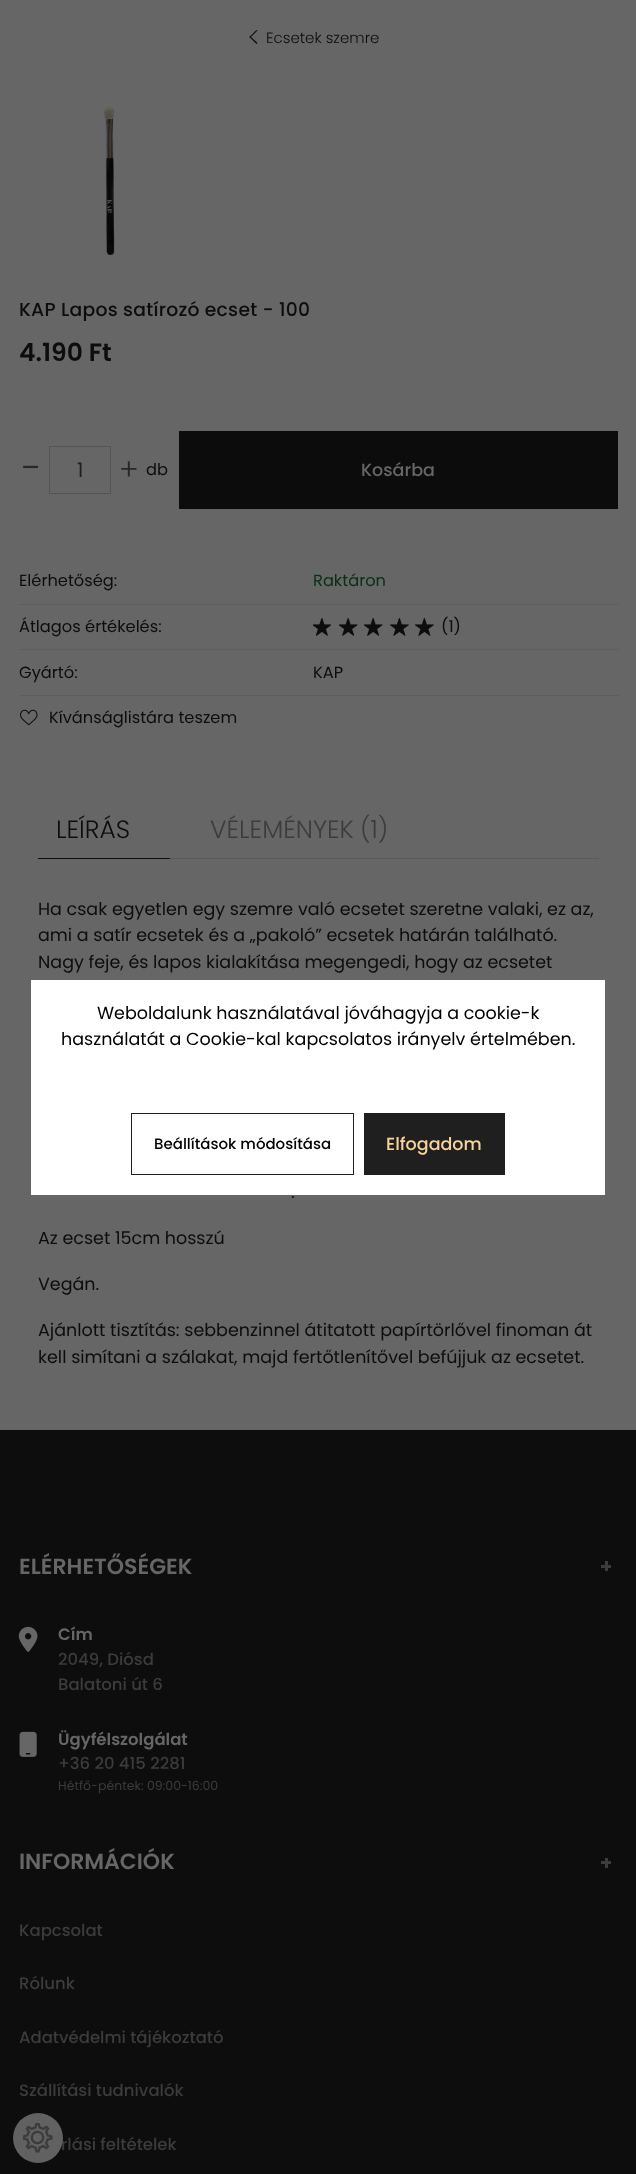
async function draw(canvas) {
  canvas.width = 636
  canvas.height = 2174
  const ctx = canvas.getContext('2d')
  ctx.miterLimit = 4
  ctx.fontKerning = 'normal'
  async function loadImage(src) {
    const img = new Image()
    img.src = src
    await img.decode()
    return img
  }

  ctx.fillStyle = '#666'
  ctx.fillRect(0, 0, 636, 2174)
  ctx.fillStyle = '#0d0d0d'
  ctx.beginPath()
  ctx.moveTo(257.5, 43)
  ctx.lineTo(256.5, 44)
  ctx.lineTo(249.5, 37)
  ctx.lineTo(250, 36)
  ctx.closePath()
  ctx.fill()
  ctx.beginPath()
  ctx.moveTo(257.5, 30.5)
  ctx.lineTo(250, 38)
  ctx.lineTo(249.5, 37)
  ctx.lineTo(256.5, 30)
  ctx.closePath()
  ctx.fill()
  ctx.font = '300 15px Poppins'
  ctx.fillText('Ecsetek szemre', 266, 43)
  ctx.drawImage(await loadImage('image0.png'), 104, 106, 11, 149)
  ctx.letterSpacing = '0.25px'
  ctx.font = '500 18.75px Poppins'
  ctx.fillText('KAP Lapos satírozó ecset - 100', 19, 316)
  ctx.letterSpacing = '0px'
  ctx.font = '600 25px Poppins'
  ctx.fillText('4.190 Ft', 19, 361)
  ctx.font = '300 38px Poppins'
  ctx.fillStyle = '#282828'
  ctx.fillText('-', 22, 481)
  ctx.strokeStyle = '#525557'
  ctx.strokeRect(49.5, 446.5, 61, 47)
  ctx.font = '20px Poppins'
  ctx.fillStyle = '#1d2023'
  ctx.fillText('1', 77, 477)
  ctx.font = '300 30px Poppins'
  ctx.fillStyle = '#282828'
  ctx.fillText('+', 119, 480)
  ctx.font = '16.25px Poppins'
  ctx.fillStyle = '#0d0d0d'
  ctx.fillText('db', 146, 475)
  ctx.fillStyle = '#0c0c0c'
  ctx.fillRect(179, 431, 439, 78)
  ctx.font = '500 17.5px Poppins'
  ctx.fillStyle = '#666'
  ctx.fillText('Kosárba', 361, 476)
  ctx.font = '16.25px Poppins'
  ctx.fillStyle = '#0d0d0d'
  ctx.fillText('Elérhetőség:', 19, 586)
  ctx.fillStyle = '#092f16'
  ctx.fillText('Raktáron', 313, 586)
  ctx.fillStyle = '#0d0d0d'
  ctx.fillText('Átlagos értékelés:', 19, 632)
  ctx.fillStyle = '#5d5e60'
  ctx.fillRect(19, 604, 600, 1)
  ctx.drawImage(await loadImage('image1.png'), 313, 618, 18, 18)
  ctx.drawImage(await loadImage('image2.png'), 339, 618, 19, 18)
  ctx.drawImage(await loadImage('image2.png'), 364, 618, 19, 18)
  ctx.drawImage(await loadImage('image3.png'), 390, 618, 19, 18)
  ctx.drawImage(await loadImage('image3.png'), 415, 618, 19, 18)
  ctx.fillStyle = '#0d0d0d'
  ctx.fillText('(1)', 441, 632)
  ctx.fillText('Gyártó:', 19, 678)
  ctx.fillStyle = '#5d5e60'
  ctx.fillRect(19, 649, 600, 1)
  ctx.fillStyle = '#0d0d0d'
  ctx.fillText('KAP', 313, 678)
  ctx.fillStyle = '#5d5e60'
  ctx.fillRect(19, 695, 600, 1)
  ctx.drawImage(await loadImage('image4.png'), 20, 709, 18, 17)
  ctx.fillStyle = '#0d0d0d'
  ctx.fillText('Kívánságlistára teszem', 49, 723)
  ctx.fillStyle = '#595a5c'
  ctx.fillRect(170, 858, 429, 1)
  ctx.fillStyle = '#0d0d0d'
  ctx.fillRect(38, 858, 132, 1)
  ctx.font = '300 25px Poppins'
  ctx.fillText('LEÍRÁS', 56, 838)
  ctx.fillStyle = '#3c3c3c'
  ctx.fillText('VÉLEMÉNYEK', 210, 838)
  ctx.fillText('(1)', 360, 838)
  ctx.font = '17.5px Poppins'
  ctx.fillStyle = '#0d0d0d'
  ctx.fillText('Ha csak egyetlen egy szemre való ecsetet szeretne valaki, ez az,', 38, 915)
  ctx.fillText('ami a satír ecsetek és a „pakoló” ecsetek határán található.', 38, 941)
  ctx.fillText('Nagy feje, és lapos kialakítása megengedi, hogy az ecsetet', 38, 968)
  ctx.fillText('.', 291, 1198)
  ctx.fillText('Az ecset 15cm hosszú', 38, 1244)
  ctx.fillText('Vegán.', 38, 1290)
  ctx.fillText('Ajánlott tisztítás: sebbenzinnel átitatott papírtörlővel finoman át', 38, 1336)
  ctx.fillText('kell simítani a szálakat, majd fertőtlenítővel befújjuk az ecsetet.', 38, 1363)
  ctx.fillRect(0, 1430, 636, 744)
  ctx.font = '600 22px Poppins'
  ctx.fillStyle = '#666'
  ctx.fillText('ELÉRHETŐSÉGEK', 19, 1574)
  ctx.fillStyle = '#3c3c3c'
  ctx.fillRect(605, 1561, 3, 10)
  ctx.fillRect(601, 1565, 10, 3)
  ctx.drawImage(await loadImage('image5.png'), 18, 1626, 20, 26)
  ctx.font = '600 16.5px Poppins'
  ctx.fillStyle = '#666'
  ctx.fillText('Cím', 58, 1640)
  ctx.font = '500 16.5px Poppins'
  ctx.fillStyle = '#3c3c3c'
  ctx.fillText('2049, Diósd', 58, 1665)
  ctx.fillText('Balatoni út 6', 58, 1690)
  ctx.drawImage(await loadImage('image6.png'), 19, 1731, 18, 26)
  ctx.font = '600 16.5px Poppins'
  ctx.fillStyle = '#666'
  ctx.fillText('Ügyfélszolgálat', 58, 1745)
  ctx.font = '500 16.5px Poppins'
  ctx.fillStyle = '#3c3c3c'
  ctx.fillText('+36 20 415 2281', 58, 1769)
  ctx.font = '12.5px Poppins'
  ctx.fillText('Hétfő-péntek: 09:00-16:00', 58, 1790)
  ctx.font = '600 22px Poppins'
  ctx.fillStyle = '#666'
  ctx.fillText('INFORMÁCIÓK', 19, 1869)
  ctx.fillStyle = '#3c3c3c'
  ctx.fillRect(605, 1858, 3, 10)
  ctx.fillRect(601, 1861, 10, 3)
  ctx.font = '500 16.5px Poppins'
  ctx.fillText('Kapcsolat', 19, 1936)
  ctx.fillText('Rólunk', 19, 1989)
  ctx.fillText('Adatvédelmi tájékoztató', 19, 2043)
  ctx.fillText('Szállítási tudnivalók', 19, 2096)
  ctx.fillText('rlási feltételek', 61, 2150)
  ctx.fillStyle = '#fff'
  ctx.fillRect(31, 980, 574, 215)
  ctx.font = '17.5px Poppins'
  ctx.fillStyle = '#000'
  ctx.fillText('Weboldalunk használatával jóváhagyja a cookie-k', 97, 1019)
  ctx.fillText('használatát a Cookie-kal kapcsolatos irányelv értelmében.', 61, 1045)
  ctx.strokeStyle = '#1f1f1f'
  ctx.strokeRect(131.5, 1113.5, 222, 61)
  ctx.font = '500 15px Poppins'
  ctx.fillText('Beállítások módosítása', 154, 1149)
  ctx.fillStyle = '#1f1f1f'
  ctx.fillRect(364, 1113, 141, 62)
  ctx.font = '500 17.5px Poppins'
  ctx.fillStyle = '#f8d39c'
  ctx.fillText('Elfogadom', 386, 1150)
  ctx.fillStyle = '#616161'
  ctx.beginPath()
  ctx.arc(38, 2138, 25, 0, 2 * Math.PI)
  ctx.fill()
  ctx.drawImage(await loadImage('image7.png'), 23, 2123, 30, 30)
}

draw(document.querySelector('canvas'))
